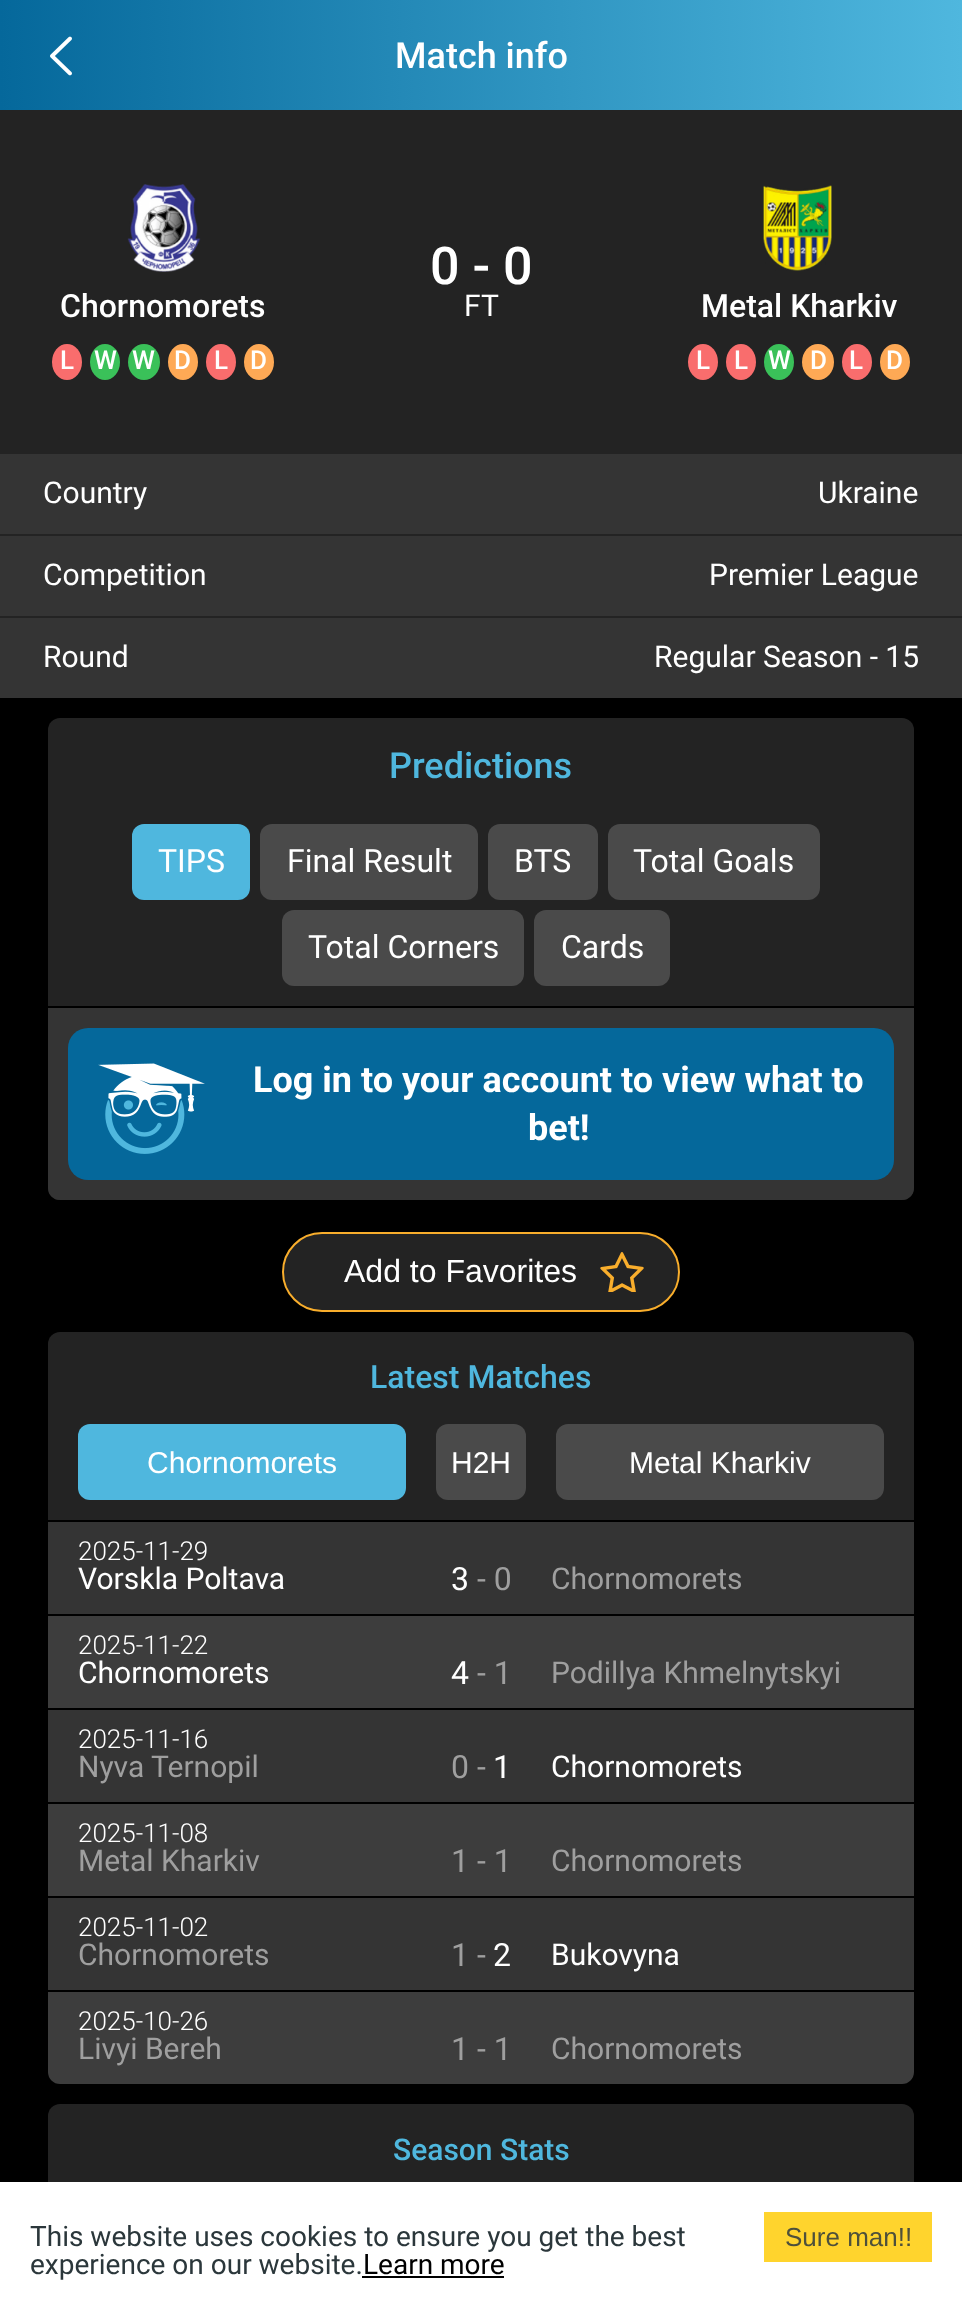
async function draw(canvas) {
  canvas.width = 962
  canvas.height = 2307
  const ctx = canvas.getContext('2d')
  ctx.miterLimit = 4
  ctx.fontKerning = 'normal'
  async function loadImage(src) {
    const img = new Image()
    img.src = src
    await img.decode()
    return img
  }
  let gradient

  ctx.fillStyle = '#000'
  ctx.fillRect(0, 0, 962, 2307)
  gradient = ctx.createLinearGradient(0, 55, 962, 55)
  gradient.addColorStop(0, '#05689b')
  gradient.addColorStop(1, '#4fb7de')
  ctx.fillStyle = gradient
  ctx.fillRect(0, 0, 962, 110)
  ctx.drawImage(await loadImage('image0.png'), 50, 36, 22, 40)
  ctx.font = '500 36px Roboto'
  ctx.fillStyle = '#fff'
  ctx.fillText('Match info', 395, 68)
  ctx.fillStyle = '#232323'
  ctx.fillRect(0, 110, 962, 508)
  ctx.font = '500 52px Roboto'
  ctx.fillStyle = '#fff'
  ctx.fillText('0 - 0', 430, 284)
  ctx.font = '30px Roboto'
  ctx.fillText('FT', 464, 316)
  ctx.drawImage(await loadImage('image1.png'), 127, 184, 74, 88)
  ctx.font = '500 32px Roboto'
  ctx.fillText('Chornomorets', 60, 317)
  ctx.fillStyle = '#f96d6d'
  ctx.beginPath()
  ctx.ellipse(67, 362, 15, 18, 0, 0, 2 * Math.PI)
  ctx.fill()
  ctx.font = '500 26px Roboto'
  ctx.fillStyle = '#fff'
  ctx.fillText('L', 60, 369)
  ctx.fillStyle = '#3ac159'
  ctx.beginPath()
  ctx.ellipse(105, 362, 15, 18, 0, 0, 2 * Math.PI)
  ctx.fill()
  ctx.fillStyle = '#fff'
  ctx.fillText('W', 94, 369)
  ctx.fillStyle = '#3ac159'
  ctx.beginPath()
  ctx.ellipse(144, 362, 16, 18, 0, 0, 2 * Math.PI)
  ctx.fill()
  ctx.fillStyle = '#fff'
  ctx.fillText('W', 132, 369)
  ctx.fillStyle = '#fea955'
  ctx.beginPath()
  ctx.ellipse(183, 362, 15, 18, 0, 0, 2 * Math.PI)
  ctx.fill()
  ctx.fillStyle = '#fff'
  ctx.fillText('D', 174, 369)
  ctx.fillStyle = '#f96d6d'
  ctx.beginPath()
  ctx.ellipse(221, 362, 15, 18, 0, 0, 2 * Math.PI)
  ctx.fill()
  ctx.fillStyle = '#fff'
  ctx.fillText('L', 214, 369)
  ctx.fillStyle = '#fea955'
  ctx.beginPath()
  ctx.ellipse(259, 362, 15, 18, 0, 0, 2 * Math.PI)
  ctx.fill()
  ctx.fillStyle = '#fff'
  ctx.fillText('D', 250, 369)
  ctx.drawImage(await loadImage('image2.png'), 763, 185, 69, 86)
  ctx.font = '500 32px Roboto'
  ctx.fillText('Metal Kharkiv', 701, 317)
  ctx.fillStyle = '#f96d6d'
  ctx.beginPath()
  ctx.ellipse(703, 362, 15, 18, 0, 0, 2 * Math.PI)
  ctx.fill()
  ctx.font = '500 26px Roboto'
  ctx.fillStyle = '#fff'
  ctx.fillText('L', 696, 369)
  ctx.fillStyle = '#f96d6d'
  ctx.beginPath()
  ctx.ellipse(741, 362, 15, 18, 0, 0, 2 * Math.PI)
  ctx.fill()
  ctx.fillStyle = '#fff'
  ctx.fillText('L', 734, 369)
  ctx.fillStyle = '#3ac159'
  ctx.beginPath()
  ctx.ellipse(779, 362, 15, 18, 0, 0, 2 * Math.PI)
  ctx.fill()
  ctx.fillStyle = '#fff'
  ctx.fillText('W', 768, 369)
  ctx.fillStyle = '#fea955'
  ctx.beginPath()
  ctx.ellipse(818, 362, 16, 18, 0, 0, 2 * Math.PI)
  ctx.fill()
  ctx.fillStyle = '#fff'
  ctx.fillText('D', 810, 369)
  ctx.fillStyle = '#f96d6d'
  ctx.beginPath()
  ctx.ellipse(857, 362, 15, 18, 0, 0, 2 * Math.PI)
  ctx.fill()
  ctx.fillStyle = '#fff'
  ctx.fillText('L', 849, 369)
  ctx.fillStyle = '#fea955'
  ctx.beginPath()
  ctx.ellipse(895, 362, 15, 18, 0, 0, 2 * Math.PI)
  ctx.fill()
  ctx.fillStyle = '#fff'
  ctx.fillText('D', 886, 369)
  ctx.fillStyle = '#343434'
  ctx.fillRect(0, 454, 962, 80)
  ctx.font = '30px Roboto'
  ctx.fillStyle = '#fff'
  ctx.fillText('Country', 43, 503)
  ctx.fillText('Ukraine', 818, 503)
  ctx.fillStyle = '#343434'
  ctx.fillRect(0, 536, 962, 80)
  ctx.fillStyle = '#fff'
  ctx.fillText('Competition', 43, 585)
  ctx.fillText('Premier League', 709, 585)
  ctx.fillStyle = '#343434'
  ctx.fillRect(0, 618, 962, 80)
  ctx.fillStyle = '#fff'
  ctx.fillText('Round', 43, 667)
  ctx.fillText('Regular Season - 15', 654, 667)
  ctx.fillStyle = '#232323'
  ctx.beginPath()
  ctx.roundRect(48, 718, 866, 96, [12, 12, 0, 0])
  ctx.fill()
  ctx.font = '500 36px Roboto'
  ctx.fillStyle = '#4fb7de'
  ctx.fillText('Predictions', 389, 778)
  ctx.fillStyle = '#232323'
  ctx.beginPath()
  ctx.roundRect(48, 814, 866, 386, [0, 0, 12, 12])
  ctx.fill()
  ctx.fillStyle = '#4fb7de'
  ctx.beginPath()
  ctx.roundRect(132, 824, 118, 76, 12)
  ctx.fill()
  ctx.font = '32px Roboto'
  ctx.fillStyle = '#fff'
  ctx.fillText('TIPS', 158, 872)
  ctx.fillStyle = '#4a4a4a'
  ctx.beginPath()
  ctx.roundRect(260, 824, 218, 76, 12)
  ctx.fill()
  ctx.fillStyle = '#fff'
  ctx.fillText('Final Result', 287, 872)
  ctx.fillStyle = '#4a4a4a'
  ctx.beginPath()
  ctx.roundRect(488, 824, 110, 76, 12)
  ctx.fill()
  ctx.fillStyle = '#fff'
  ctx.fillText('BTS', 514, 872)
  ctx.fillStyle = '#4a4a4a'
  ctx.beginPath()
  ctx.roundRect(608, 824, 212, 76, 12)
  ctx.fill()
  ctx.fillStyle = '#fff'
  ctx.fillText('Total Goals', 633, 872)
  ctx.fillStyle = '#4a4a4a'
  ctx.beginPath()
  ctx.roundRect(282, 910, 242, 76, 12)
  ctx.fill()
  ctx.fillStyle = '#fff'
  ctx.fillText('Total Corners', 308, 958)
  ctx.fillStyle = '#4a4a4a'
  ctx.beginPath()
  ctx.roundRect(534, 910, 136, 76, 12)
  ctx.fill()
  ctx.fillStyle = '#fff'
  ctx.fillText('Cards', 561, 958)
  ctx.fillStyle = '#343434'
  ctx.beginPath()
  ctx.roundRect(48, 1006, 866, 194, [0, 0, 12, 12])
  ctx.fill()
  ctx.fillStyle = '#000'
  ctx.fillRect(48, 1006, 866, 2)
  ctx.fillStyle = '#05689b'
  ctx.beginPath()
  ctx.roundRect(68, 1028, 826, 152, 20)
  ctx.fill()
  ctx.drawImage(await loadImage('image3.png'), 98, 1063, 107, 91)
  ctx.font = 'bold 36px Roboto'
  ctx.fillStyle = '#fff'
  ctx.fillText('Log in to your account to view what to', 253, 1092)
  ctx.fillText('bet!', 528, 1140)
  ctx.fillStyle = '#232323'
  ctx.beginPath()
  ctx.roundRect(283, 1233, 396, 78, 39)
  ctx.fill()
  ctx.strokeStyle = '#f9ae2c'
  ctx.lineWidth = 2
  ctx.stroke()
  ctx.font = '32px Liberation Sans'
  ctx.fillStyle = '#fff'
  ctx.fillText('Add to Favorites', 344, 1282)
  ctx.drawImage(await loadImage('image4.png'), 600, 1252, 44, 40)
  ctx.fillStyle = '#232323'
  ctx.beginPath()
  ctx.roundRect(48, 1332, 866, 188, [12, 12, 0, 0])
  ctx.fill()
  ctx.font = '500 32px Roboto'
  ctx.fillStyle = '#4fb7de'
  ctx.fillText('Latest Matches', 370, 1388)
  ctx.beginPath()
  ctx.roundRect(78, 1424, 328, 76, 12)
  ctx.fill()
  ctx.font = '30px Liberation Sans'
  ctx.fillStyle = '#fff'
  ctx.fillText('Chornomorets', 147, 1473)
  ctx.fillStyle = '#4a4a4a'
  ctx.beginPath()
  ctx.roundRect(436, 1424, 90, 76, 12)
  ctx.fill()
  ctx.fillStyle = '#fff'
  ctx.fillText('H2H', 451, 1473)
  ctx.fillStyle = '#4a4a4a'
  ctx.beginPath()
  ctx.roundRect(556, 1424, 328, 76, 12)
  ctx.fill()
  ctx.fillStyle = '#fff'
  ctx.fillText('Metal Kharkiv', 629, 1473)
  ctx.fillStyle = '#343434'
  ctx.fillRect(48, 1522, 866, 92)
  ctx.font = '300 26px Roboto'
  ctx.fillStyle = '#fff'
  ctx.fillText('2025-11-29', 78, 1560)
  ctx.font = '30px Roboto'
  ctx.fillText('Vorskla Poltava', 78, 1589)
  ctx.font = '32px Roboto'
  ctx.fillText('3', 451, 1590)
  ctx.fillStyle = '#9f9f9f'
  ctx.fillText('- 0', 477, 1590)
  ctx.font = '30px Roboto'
  ctx.fillText('Chornomorets', 551, 1589)
  ctx.fillStyle = '#3d3d3d'
  ctx.fillRect(48, 1616, 866, 92)
  ctx.font = '300 26px Roboto'
  ctx.fillStyle = '#fff'
  ctx.fillText('2025-11-22', 78, 1654)
  ctx.font = '30px Roboto'
  ctx.fillText('Chornomorets', 78, 1683)
  ctx.font = '32px Roboto'
  ctx.fillText('4', 451, 1684)
  ctx.fillStyle = '#9f9f9f'
  ctx.fillText('- 1', 477, 1684)
  ctx.font = '30px Roboto'
  ctx.fillText('Podillya Khmelnytskyi', 551, 1683)
  ctx.fillStyle = '#343434'
  ctx.fillRect(48, 1710, 866, 92)
  ctx.font = '300 26px Roboto'
  ctx.fillStyle = '#fff'
  ctx.fillText('2025-11-16', 78, 1748)
  ctx.font = '30px Roboto'
  ctx.fillStyle = '#9f9f9f'
  ctx.fillText('Nyva Ternopil', 78, 1777)
  ctx.font = '32px Roboto'
  ctx.fillText('0 -', 451, 1778)
  ctx.fillStyle = '#fff'
  ctx.fillText('1', 493, 1778)
  ctx.font = '30px Roboto'
  ctx.fillText('Chornomorets', 551, 1777)
  ctx.fillStyle = '#3d3d3d'
  ctx.fillRect(48, 1804, 866, 92)
  ctx.font = '300 26px Roboto'
  ctx.fillStyle = '#fff'
  ctx.fillText('2025-11-08', 78, 1842)
  ctx.font = '30px Roboto'
  ctx.fillStyle = '#9f9f9f'
  ctx.fillText('Metal Kharkiv', 78, 1871)
  ctx.font = '32px Roboto'
  ctx.fillText('1 - 1', 451, 1872)
  ctx.font = '30px Roboto'
  ctx.fillText('Chornomorets', 551, 1871)
  ctx.fillStyle = '#343434'
  ctx.fillRect(48, 1898, 866, 92)
  ctx.font = '300 26px Roboto'
  ctx.fillStyle = '#fff'
  ctx.fillText('2025-11-02', 78, 1936)
  ctx.font = '30px Roboto'
  ctx.fillStyle = '#9f9f9f'
  ctx.fillText('Chornomorets', 78, 1965)
  ctx.font = '32px Roboto'
  ctx.fillText('1 -', 451, 1966)
  ctx.fillStyle = '#fff'
  ctx.fillText('2', 493, 1966)
  ctx.font = '30px Roboto'
  ctx.fillText('Bukovyna', 551, 1965)
  ctx.fillStyle = '#3d3d3d'
  ctx.beginPath()
  ctx.roundRect(48, 1992, 866, 92, [0, 0, 12, 12])
  ctx.fill()
  ctx.font = '300 26px Roboto'
  ctx.fillStyle = '#fff'
  ctx.fillText('2025-10-26', 78, 2030)
  ctx.font = '30px Roboto'
  ctx.fillStyle = '#9f9f9f'
  ctx.fillText('Livyi Bereh', 78, 2059)
  ctx.font = '32px Roboto'
  ctx.fillText('1 - 1', 451, 2060)
  ctx.font = '30px Roboto'
  ctx.fillText('Chornomorets', 551, 2059)
  ctx.fillStyle = '#232323'
  ctx.beginPath()
  ctx.roundRect(48, 2104, 866, 92, [12, 12, 0, 0])
  ctx.fill()
  ctx.font = '500 30px Roboto'
  ctx.fillStyle = '#4fb7de'
  ctx.fillText('Season Stats', 393, 2160)
  ctx.fillStyle = '#fff'
  ctx.fillRect(0, 2182, 962, 125)
  ctx.font = '28px Roboto'
  ctx.fillStyle = '#2b373b'
  ctx.fillText('This website uses cookies to ensure you get the best', 30, 2246)
  ctx.fillText('experience on our website.', 30, 2274)
  ctx.fillStyle = '#000'
  ctx.fillText('Learn more', 363, 2274)
  ctx.fillRect(362, 2276, 142, 2)
  ctx.fillStyle = '#ffd42d'
  ctx.fillRect(764, 2212, 168, 50)
  ctx.font = '26px Liberation Sans'
  ctx.fillStyle = '#4e503b'
  ctx.fillText('Sure man!!', 785, 2246)
}

draw(document.querySelector('canvas'))
